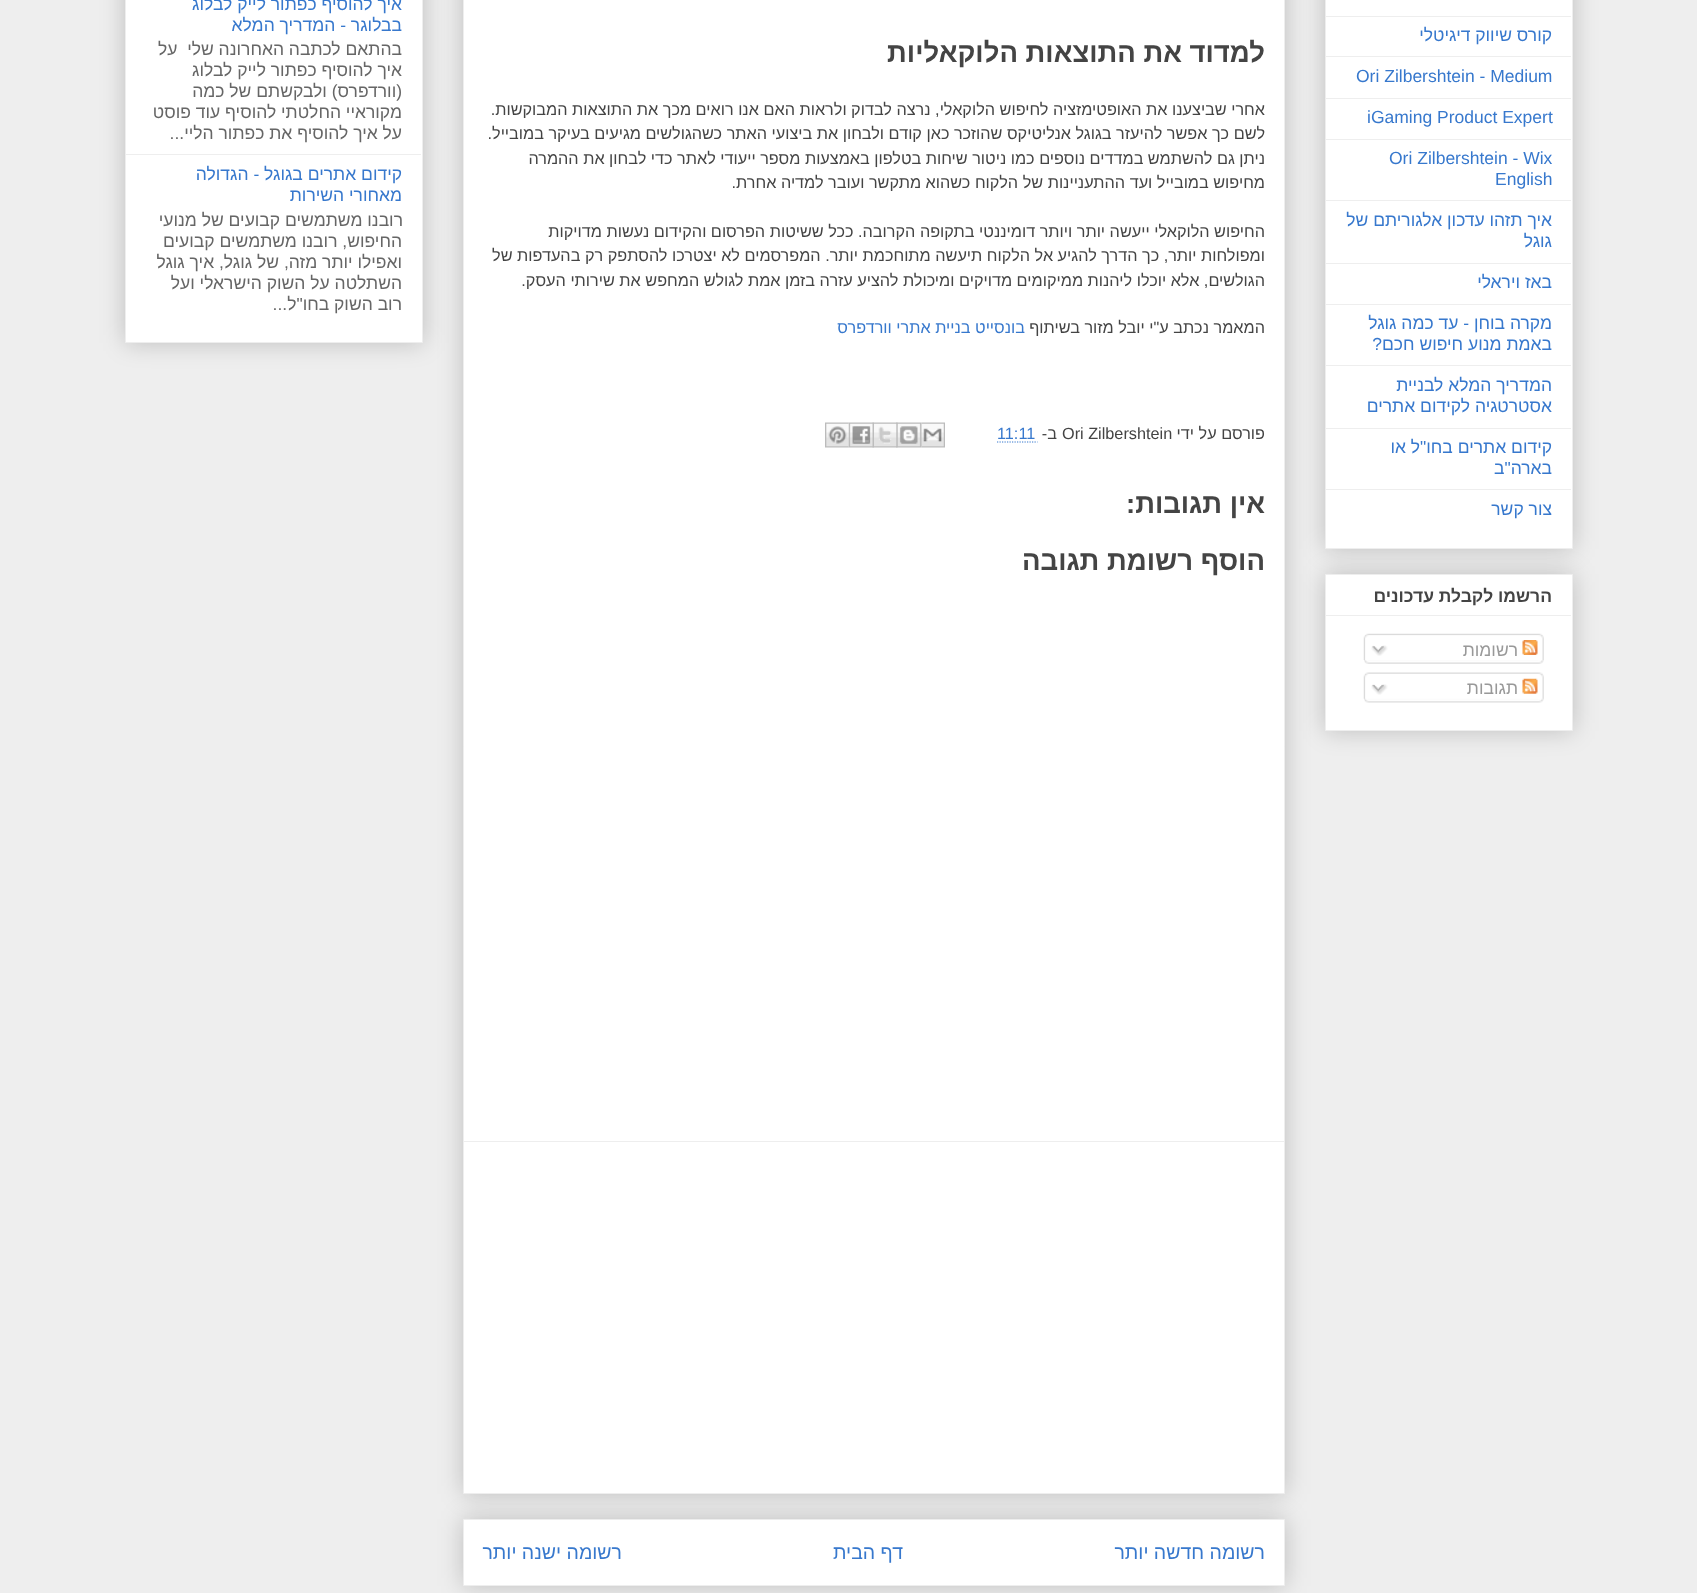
async function draw(canvas) {
  canvas.width = 1697
  canvas.height = 1593
  const ctx = canvas.getContext('2d')
  ctx.miterLimit = 4
  ctx.fontKerning = 'normal'
  async function loadImage(src) {
    const img = new Image()
    img.src = src
    await img.decode()
    return img
  }

  ctx.fillStyle = '#eee'
  ctx.fillRect(0, 0, 1697, 1593)
  ctx.fillStyle = '#00000033'
  ctx.filter = 'blur(12.5px)'
  ctx.beginPath()
  ctx.rect(1325, 574, 248, 157)
  ctx.fill()
  ctx.filter = 'none'
  ctx.fillStyle = '#fff'
  ctx.beginPath()
  ctx.rect(1325.5, 574.5, 247, 156)
  ctx.fill()
  ctx.strokeStyle = '#eee'
  ctx.stroke()
  ctx.fillStyle = '#00000033'
  ctx.filter = 'blur(12.5px)'
  ctx.beginPath()
  ctx.rect(1325, -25, 248, 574)
  ctx.fill()
  ctx.filter = 'none'
  ctx.fillStyle = '#fff'
  ctx.beginPath()
  ctx.rect(1325.5, -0.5, 247, 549)
  ctx.fill()
  ctx.stroke()
  ctx.fillStyle = '#eee'
  ctx.fillRect(1326, 16, 245, 1)
  ctx.direction = 'rtl'
  ctx.font = '17.5px Liberation Sans'
  ctx.fillStyle = '#3778cd'
  ctx.fillText('קורס שיווק דיגיטלי', 1552, 41)
  ctx.fillStyle = '#eee'
  ctx.fillRect(1326, 56, 245, 1)
  ctx.direction = 'ltr'
  ctx.fillStyle = '#3778cd'
  ctx.fillText('Ori Zilbershtein - Medium', 1356, 82)
  ctx.fillStyle = '#eee'
  ctx.fillRect(1326, 98, 245, 1)
  ctx.fillStyle = '#3778cd'
  ctx.fillText('iGaming Product Expert', 1367, 123)
  ctx.fillStyle = '#eee'
  ctx.fillRect(1326, 139, 245, 1)
  ctx.fillStyle = '#3778cd'
  ctx.fillText('Ori Zilbershtein - Wix', 1389, 164)
  ctx.fillText('English', 1495, 185)
  ctx.fillStyle = '#eee'
  ctx.fillRect(1326, 200, 245, 1)
  ctx.direction = 'rtl'
  ctx.fillStyle = '#3778cd'
  ctx.fillText('איך תזהו עדכון אלגוריתם של', 1552, 226)
  ctx.fillText('גוגל', 1552, 247)
  ctx.fillStyle = '#eee'
  ctx.fillRect(1326, 263, 245, 1)
  ctx.fillStyle = '#3778cd'
  ctx.fillText('באז ויראלי', 1552, 288)
  ctx.fillStyle = '#eee'
  ctx.fillRect(1326, 304, 245, 1)
  ctx.fillStyle = '#3778cd'
  ctx.fillText('מקרה בוחן - עד כמה גוגל', 1552, 329)
  ctx.fillText('באמת מנוע חיפוש חכם?', 1552, 350)
  ctx.fillStyle = '#eee'
  ctx.fillRect(1326, 365, 245, 1)
  ctx.fillStyle = '#3778cd'
  ctx.fillText('המדריך המלא לבניית', 1552, 391)
  ctx.fillText('אסטרטגיה לקידום אתרים', 1552, 412)
  ctx.fillStyle = '#eee'
  ctx.fillRect(1326, 428, 245, 1)
  ctx.fillStyle = '#3778cd'
  ctx.fillText('קידום אתרים בחו"ל או', 1552, 453)
  ctx.fillText('בארה"ב', 1552, 474)
  ctx.fillStyle = '#eee'
  ctx.fillRect(1326, 489, 245, 1)
  ctx.fillStyle = '#3778cd'
  ctx.fillText('צור קשר', 1552, 515)
  ctx.font = 'bold 17.5px Liberation Sans'
  ctx.fillStyle = '#444'
  ctx.fillText('הרשמו לקבלת עדכונים', 1552, 602)
  ctx.fillStyle = '#eee'
  ctx.fillRect(1326, 615, 245, 1)
  ctx.drawImage(await loadImage('image0.png'), 1363, 633, 181, 27)
  ctx.drawImage(await loadImage('image1.png'), 1522, 640, 16, 15)
  ctx.font = '17.5px Liberation Sans'
  ctx.fillStyle = '#999'
  ctx.fillText('רשומות', 1518, 656)
  ctx.drawImage(await loadImage('image2.png'), 1371, 645, 17, 11)
  ctx.drawImage(await loadImage('image3.png'), 1364, 660, 180, 4)
  ctx.drawImage(await loadImage('image4.png'), 1363, 672, 181, 27)
  ctx.drawImage(await loadImage('image5.png'), 1522, 678, 16, 16)
  ctx.fillText('תגובות', 1518, 694)
  ctx.drawImage(await loadImage('image6.png'), 1371, 684, 17, 11)
  ctx.drawImage(await loadImage('image7.png'), 1364, 698, 180, 5)
  ctx.fillStyle = '#00000033'
  ctx.filter = 'blur(12.5px)'
  ctx.beginPath()
  ctx.rect(463, 1519, 822, 67)
  ctx.fill()
  ctx.filter = 'none'
  ctx.fillStyle = '#fff'
  ctx.beginPath()
  ctx.rect(463.5, 1519.5, 821, 66)
  ctx.fill()
  ctx.stroke()
  ctx.fillStyle = '#00000033'
  ctx.filter = 'blur(12.5px)'
  ctx.beginPath()
  ctx.rect(463, -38, 822, 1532)
  ctx.fill()
  ctx.filter = 'none'
  ctx.fillStyle = '#fff'
  ctx.beginPath()
  ctx.rect(463.5, -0.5, 821, 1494)
  ctx.fill()
  ctx.stroke()
  ctx.font = 'bold 27.5px Liberation Sans'
  ctx.fillStyle = '#444'
  ctx.fillText('למדוד את התוצאות הלוקאליות', 1265, 62)
  ctx.font = '16.25px Liberation Sans'
  ctx.fillText('אחרי שביצענו את האופטימזציה לחיפוש הלוקאלי, נרצה לבדוק ולראות האם אנו רואים מכך את התוצאות המבוקשות.', 1265, 115)
  ctx.fillText('לשם כך אפשר להיעזר בגוגל אנליטיקס שהוזכר כאן קודם ולבחון את ביצועי האתר כשהגולשים מגיעים בעיקר במובייל.', 1265, 139)
  ctx.fillText('ניתן גם להשתמש במדדים נוספים כמו ניטור שיחות בטלפון באמצעות מספר ייעודי לאתר כדי לבחון את ההמרה', 1265, 164)
  ctx.fillText('מחיפוש במובייל ועד ההתעניינות של הלקוח כשהוא מתקשר ועובר למדיה אחרת.', 1265, 188)
  ctx.fillText('החיפוש הלוקאלי ייעשה יותר ויותר דומיננטי בתקופה הקרובה. ככל ששיטות הפרסום והקידום נעשות מדויקות', 1265, 237)
  ctx.fillText('ומפולחות יותר, כך הדרך להגיע אל הלקוח תיעשה מתוחכמת יותר. המפרסמים לא יצטרכו להסתפק רק בהעדפות של', 1265, 261)
  ctx.fillText('הגולשים, אלא יוכלו ליהנות ממיקומים מדויקים ומיכולת להציע עזרה בזמן אמת לגולש המחפש את שירותי העסק.', 1265, 286)
  ctx.fillText('המאמר נכתב ע"י יובל מזור בשיתוף', 1265, 333)
  ctx.fillStyle = '#3778cd'
  ctx.fillText('בונסייט בניית אתרי וורדפרס', 1025, 333)
  ctx.fillStyle = '#444'
  ctx.fillText('פורסם על ידי', 1265, 439)
  ctx.direction = 'ltr'
  ctx.fillText('Ori Zilbershtein', 1062, 439)
  ctx.direction = 'rtl'
  ctx.fillText('ב-', 1057, 439)
  ctx.direction = 'ltr'
  ctx.fillStyle = '#3778cd'
  ctx.fillText('11:11', 997, 439)
  ctx.beginPath()
  ctx.moveTo(997, 442)
  ctx.lineTo(1037.5, 442)
  ctx.strokeStyle = '#3778cd'
  ctx.lineWidth = 1.2
  ctx.setLineDash([1.25, 1.25])
  ctx.stroke()
  ctx.drawImage(await loadImage('image8.png'), 921, 422, 24, 26)
  ctx.drawImage(await loadImage('image9.png'), 896, 422, 26, 26)
  ctx.drawImage(await loadImage('image10.png'), 872, 422, 26, 26)
  ctx.drawImage(await loadImage('image11.png'), 848, 422, 26, 26)
  ctx.drawImage(await loadImage('image12.png'), 825, 422, 24, 26)
  ctx.direction = 'rtl'
  ctx.font = 'bold 27.5px Liberation Sans'
  ctx.fillStyle = '#444'
  ctx.fillText('אין תגובות:', 1265, 513)
  ctx.fillText('הוסף רשומת תגובה', 1265, 570)
  ctx.fillStyle = '#eee'
  ctx.fillRect(464, 1141, 820, 1)
  ctx.font = '19.5px Liberation Sans'
  ctx.fillStyle = '#3778cd'
  ctx.fillText('רשומה חדשה יותר', 1265, 1559)
  ctx.fillText('דף הבית', 903, 1559)
  ctx.fillText('רשומה ישנה יותר', 622, 1559)
  ctx.fillStyle = '#00000033'
  ctx.filter = 'blur(12.5px)'
  ctx.beginPath()
  ctx.rect(125, -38, 298, 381)
  ctx.fill()
  ctx.filter = 'none'
  ctx.fillStyle = '#fff'
  ctx.beginPath()
  ctx.rect(125.5, -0.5, 297, 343)
  ctx.fill()
  ctx.strokeStyle = '#eee'
  ctx.lineWidth = 1
  ctx.setLineDash([])
  ctx.stroke()
  ctx.font = '17.5px Liberation Sans'
  ctx.fillStyle = '#3778cd'
  ctx.fillText('איך להוסיף כפתור לייק לבלוג', 402, 10)
  ctx.fillText('בבלוגר - המדריך המלא', 402, 31)
  ctx.fillStyle = '#666'
  ctx.fillText('בהתאם לכתבה האחרונה שלי  על', 402, 55)
  ctx.fillText('איך להוסיף כפתור לייק לבלוג', 402, 76)
  ctx.fillText('(וורדפרס) ולבקשתם של כמה', 402, 97)
  ctx.fillText('מקוראיי החלטתי להוסיף עוד פוסט', 402, 118)
  ctx.fillText('על איך להוסיף את כפתור הליי...', 402, 139)
  ctx.fillStyle = '#eee'
  ctx.fillRect(126, 154, 295, 1)
  ctx.fillStyle = '#3778cd'
  ctx.fillText('קידום אתרים בגוגל - הגדולה', 402, 180)
  ctx.fillText('מאחורי השירות', 402, 201)
  ctx.fillStyle = '#666'
  ctx.fillText('רובנו משתמשים קבועים של מנועי', 403, 226)
  ctx.fillText('החיפוש, רובנו משתמשים קבועים', 402, 247)
  ctx.fillText('ואפילו יותר מזה, של גוגל, איך גוגל', 402, 268)
  ctx.fillText('השתלטה על השוק הישראלי ועל', 402, 289)
  ctx.fillText('רוב השוק בחו"ל...', 402, 310)
}

draw(document.querySelector('canvas'))
